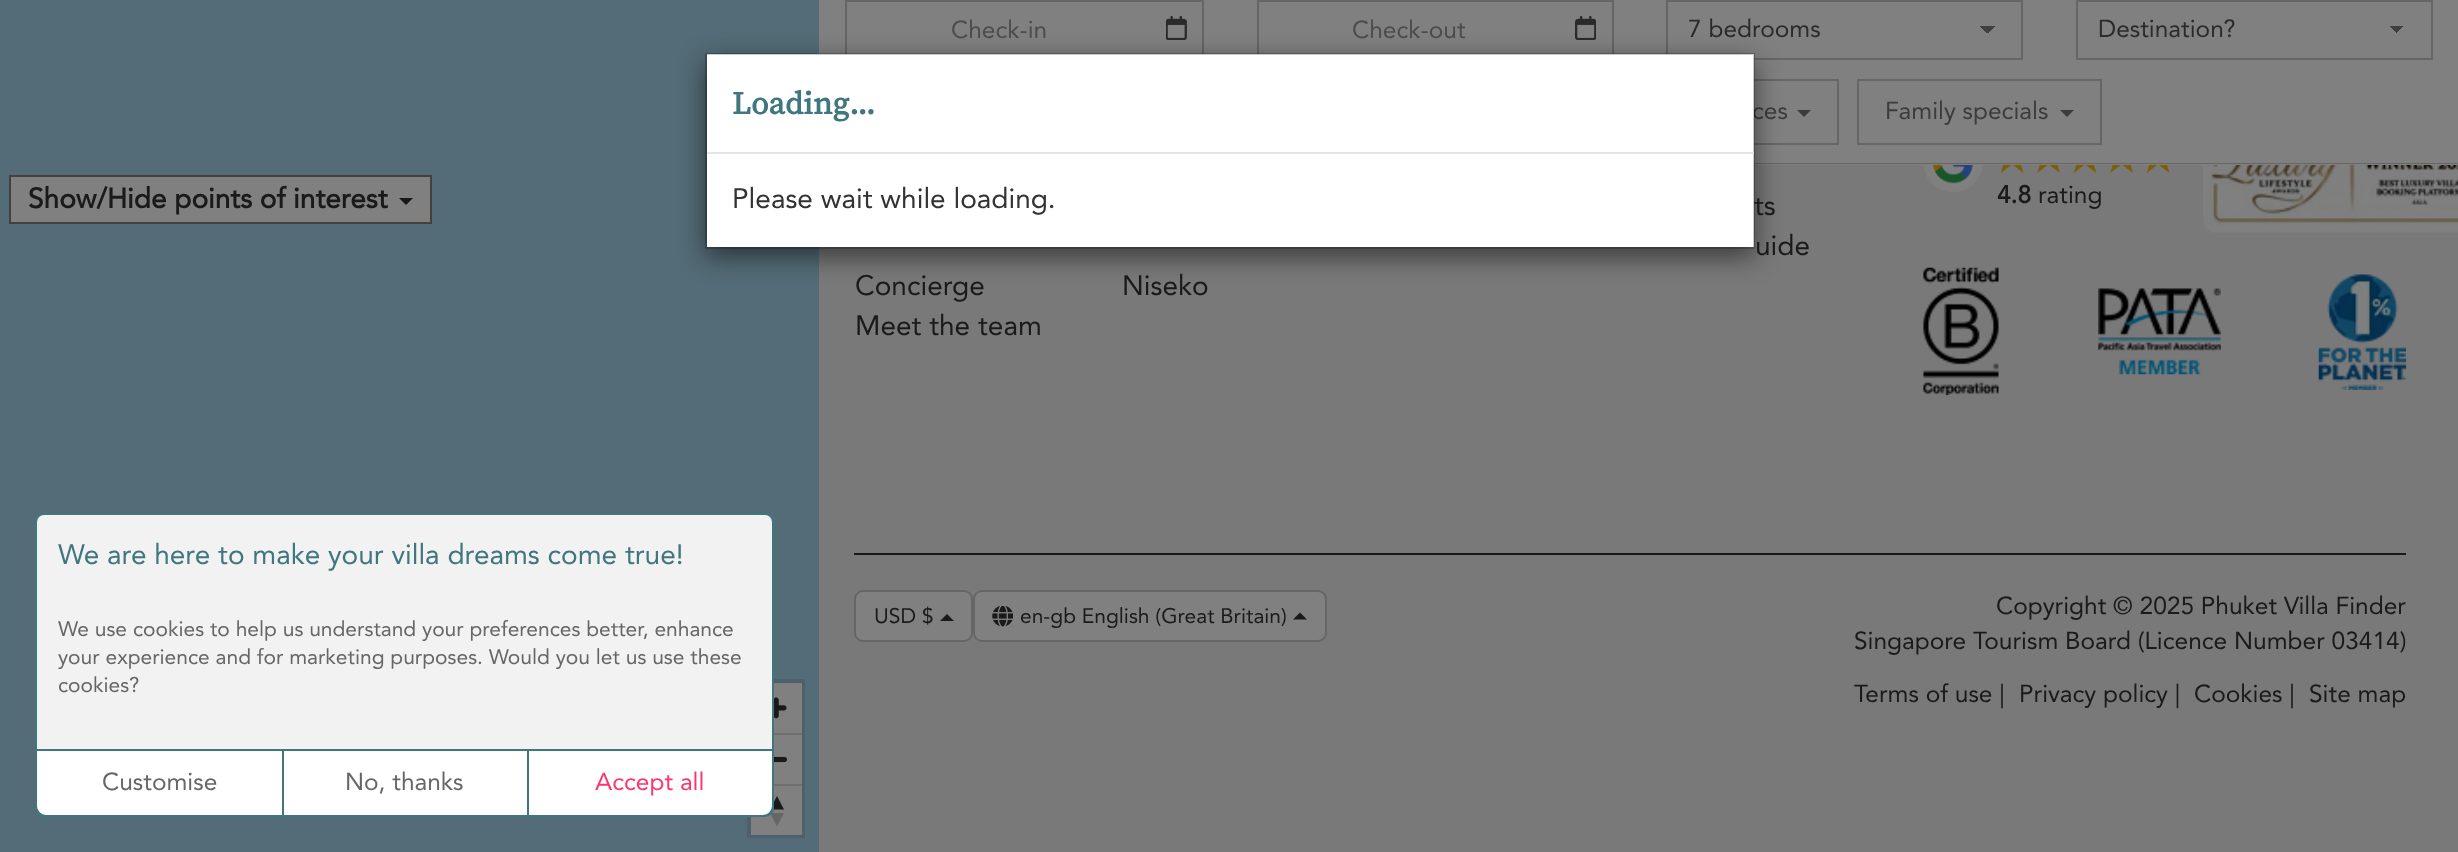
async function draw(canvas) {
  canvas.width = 2458
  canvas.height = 852
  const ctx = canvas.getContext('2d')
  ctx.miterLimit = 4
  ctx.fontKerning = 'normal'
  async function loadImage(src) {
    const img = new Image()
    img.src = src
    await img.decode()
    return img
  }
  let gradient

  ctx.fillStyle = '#797979'
  ctx.fillRect(0, 0, 2458, 852)
  ctx.fillStyle = '#808080'
  ctx.fillRect(819, 0, 1639, 77)
  ctx.fillStyle = '#666'
  ctx.fillRect(845, 0, 359, 2)
  ctx.fillRect(1202, 0, 2, 60)
  ctx.drawImage(await loadImage('image0.png'), 1166, 16, 21, 24)
  ctx.fillRect(845, 0, 2, 60)
  ctx.font = '24.5px Avenir'
  ctx.fillStyle = '#4d4d4d'
  ctx.fillText('Check-in', 951, 38)
  ctx.fillStyle = '#666'
  ctx.fillRect(1257, 0, 357, 2)
  ctx.fillRect(1612, 0, 2, 60)
  ctx.drawImage(await loadImage('image1.png'), 1575, 16, 21, 24)
  ctx.fillRect(1257, 0, 2, 60)
  ctx.fillStyle = '#4d4d4d'
  ctx.fillText('Check-out', 1352, 38)
  gradient = ctx.createLinearGradient(1987, 26, 1995, 34)
  gradient.addColorStop(0.5, '#404040')
  gradient.addColorStop(0.5, '#808080')
  ctx.fillStyle = gradient
  ctx.fillRect(1986, 26, 9, 7)
  gradient = ctx.createLinearGradient(1979, 33, 1986, 26)
  gradient.addColorStop(0.5, '#808080')
  gradient.addColorStop(0.5, '#404040')
  ctx.fillStyle = gradient
  ctx.fillRect(1979, 26, 7, 6)
  ctx.strokeStyle = '#666'
  ctx.lineWidth = 2
  ctx.strokeRect(1667, 1, 355, 58)
  ctx.fillStyle = '#2b2b2b'
  ctx.fillText('7 bedrooms', 1688, 37)
  gradient = ctx.createLinearGradient(2396, 26, 2404, 34)
  gradient.addColorStop(0.5, '#404040')
  gradient.addColorStop(0.5, '#808080')
  ctx.fillStyle = gradient
  ctx.fillRect(2396, 26, 9, 7)
  gradient = ctx.createLinearGradient(2389, 33, 2396, 26)
  gradient.addColorStop(0.5, '#808080')
  gradient.addColorStop(0.5, '#404040')
  ctx.fillStyle = gradient
  ctx.fillRect(2389, 26, 7, 6)
  ctx.strokeRect(2077, 1, 355, 58)
  ctx.fillStyle = '#2b2b2b'
  ctx.fillText('Destination?', 2098, 37)
  ctx.fillStyle = '#808080'
  ctx.fillRect(1754, 77, 704, 88)
  ctx.fillStyle = '#666'
  ctx.beginPath()
  ctx.moveTo(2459, 164)
  ctx.lineTo(819, 164)
  ctx.lineTo(821, 163)
  ctx.lineTo(2457, 163)
  ctx.closePath()
  ctx.fill()
  ctx.strokeRect(1671, 80, 167, 64)
  ctx.fillStyle = '#3c3c3c'
  ctx.fillText('ces', 1752, 119)
  ctx.beginPath()
  ctx.moveTo(1797, 110)
  ctx.lineTo(1811, 110)
  ctx.lineTo(1804, 117)
  ctx.closePath()
  ctx.fill()
  ctx.strokeRect(1858, 80, 243, 64)
  ctx.fillText('Family specials', 1885, 119)
  ctx.beginPath()
  ctx.moveTo(2060, 110)
  ctx.lineTo(2074, 110)
  ctx.lineTo(2067, 117)
  ctx.closePath()
  ctx.fill()
  ctx.fillStyle = '#546c77'
  ctx.fillRect(0, 0, 819, 852)
  ctx.strokeStyle = '#4c616b'
  ctx.lineWidth = 4
  ctx.strokeRect(749, 681, 54, 155)
  ctx.fillStyle = '#808080'
  ctx.fillRect(751, 683, 51, 152)
  ctx.drawImage(await loadImage('image2.png'), 774, 697, 13, 22)
  ctx.fillStyle = '#6f6f6f'
  ctx.fillRect(774, 733, 28, 2)
  ctx.drawImage(await loadImage('image3.png'), 774, 756, 14, 7)
  ctx.fillRect(774, 784, 28, 2)
  ctx.fillStyle = '#1a1a1a'
  ctx.beginPath()
  ctx.moveTo(770, 809.5)
  ctx.lineTo(777, 796)
  ctx.lineTo(784, 809.5)
  ctx.closePath()
  ctx.fill()
  ctx.fillStyle = '#666'
  ctx.beginPath()
  ctx.moveTo(770, 813)
  ctx.lineTo(777, 826.5)
  ctx.lineTo(784, 813)
  ctx.closePath()
  ctx.fill()
  ctx.fillStyle = '#808080'
  ctx.beginPath()
  ctx.rect(10, 176, 421, 47)
  ctx.fill()
  ctx.strokeStyle = '#44403e'
  ctx.lineWidth = 2
  ctx.stroke()
  ctx.font = 'bold 28px Avenir'
  ctx.fillStyle = '#1a1a1a'
  ctx.fillText('Show/Hide points of interest', 28, 208)
  ctx.fillStyle = '#171717'
  ctx.beginPath()
  ctx.moveTo(399, 198)
  ctx.lineTo(413, 198)
  ctx.lineTo(406, 205)
  ctx.closePath()
  ctx.fill()
  ctx.fillStyle = '#00000080'
  ctx.filter = 'blur(13px)'
  ctx.beginPath()
  ctx.rect(705, 61, 1050, 196)
  ctx.fill()
  ctx.filter = 'none'
  ctx.fillStyle = '#fff'
  ctx.fillRect(707, 54, 1047, 193)
  ctx.font = '28px Avenir'
  ctx.fillStyle = '#1a1a1a'
  ctx.fillText('ts', 1754, 215)
  ctx.strokeStyle = '#00000033'
  ctx.strokeRect(706, 54, 1048, 194)
  ctx.fillStyle = '#e5e5e5'
  ctx.fillRect(707, 152, 1047, 2)
  ctx.font = 'bold 31.5px "Source Serif 4"'
  ctx.fillStyle = '#40777e'
  ctx.fillText('Loading...', 732, 114)
  ctx.font = '28px Avenir'
  ctx.fillStyle = '#333'
  ctx.fillText('Please wait while loading.', 732, 208)
  ctx.fillStyle = '#f2f2f2'
  ctx.beginPath()
  ctx.roundRect(36, 514, 737, 302, 8)
  ctx.fill()
  ctx.strokeStyle = '#40777e'
  ctx.stroke()
  ctx.fillStyle = '#40777e'
  ctx.fillText('We are here to make your villa dreams come true!', 58, 564)
  ctx.font = '21px Avenir'
  ctx.fillStyle = '#666'
  ctx.fillText('We use cookies to help us understand your preferences better, enhance', 58, 636)
  ctx.fillText('your experience and for marketing purposes. Would you let us use these', 58, 664)
  ctx.fillText('cookies?', 58, 692)
  ctx.fillStyle = '#fff'
  ctx.beginPath()
  ctx.roundRect(527, 751, 245, 65, [0, 0, 9, 0])
  ctx.fill()
  ctx.beginPath()
  ctx.roundRect(526, 750, 247, 66, [0, 0, 10, 0])
  ctx.stroke()
  ctx.fillRect(284, 751, 243, 64)
  ctx.strokeRect(281, 750, 247, 66)
  ctx.beginPath()
  ctx.roundRect(37, 751, 245, 65, [0, 0, 0, 9])
  ctx.fill()
  ctx.beginPath()
  ctx.roundRect(36, 750, 247, 66, [0, 0, 0, 10])
  ctx.stroke()
  ctx.font = '24.5px Avenir'
  ctx.fillStyle = '#666'
  ctx.fillText('Customise', 102, 790)
  ctx.fillText('No, thanks', 345, 790)
  ctx.fillStyle = '#ff336d'
  ctx.fillText('Accept all', 595, 790)
  ctx.font = '28px Avenir'
  ctx.fillStyle = '#1a1a1a'
  ctx.fillText('uide', 1755, 255)
  ctx.drawImage(await loadImage('image4.png'), 1923, 165, 60, 27)
  ctx.drawImage(await loadImage('image5.png'), 2000, 165, 170, 8)
  ctx.font = 'bold 24.5px Avenir'
  ctx.fillText('4.8', 1997, 203)
  ctx.font = '24.5px Avenir'
  ctx.fillText('rating', 2038, 203)
  ctx.drawImage(await loadImage('image6.png'), 2203, 165, 255, 68)
  ctx.drawImage(await loadImage('image7.png'), 1923, 267, 76, 129)
  ctx.drawImage(await loadImage('image8.png'), 2098, 288, 123, 87)
  ctx.drawImage(await loadImage('image9.png'), 2318, 274, 89, 116)
  ctx.font = '28px Avenir'
  ctx.fillText('Concierge', 855, 295)
  ctx.fillText('Meet the team', 855, 335)
  ctx.fillText('Niseko', 1122, 295)
  ctx.fillRect(854, 553, 1552, 2)
  ctx.fillStyle = '#808080'
  ctx.beginPath()
  ctx.roundRect(855, 591, 117, 50, 8)
  ctx.fill()
  ctx.strokeStyle = '#666'
  ctx.stroke()
  ctx.font = '21px Avenir'
  ctx.fillStyle = '#1a1a1a'
  ctx.fillText('USD $', 874, 623)
  ctx.beginPath()
  ctx.moveTo(954, 621)
  ctx.lineTo(940, 621)
  ctx.lineTo(947, 614)
  ctx.closePath()
  ctx.fill()
  ctx.fillStyle = '#808080'
  ctx.beginPath()
  ctx.roundRect(974, 591, 352, 50, 8)
  ctx.fill()
  ctx.stroke()
  ctx.drawImage(await loadImage('image10.png'), 992, 606, 21, 21)
  ctx.fillStyle = '#1a1a1a'
  ctx.fillText('en-gb English (Great Britain)', 1020, 623)
  ctx.beginPath()
  ctx.moveTo(1307, 619.5)
  ctx.lineTo(1293, 619.5)
  ctx.lineTo(1300, 612.5)
  ctx.closePath()
  ctx.fill()
  ctx.font = '24.5px Avenir'
  ctx.fillText('Copyright © 2025 Phuket Villa Finder', 1996, 614)
  ctx.fillText('Singapore Tourism Board (Licence Number 03414)', 1854, 649)
  ctx.fillText('Terms of use |', 1854, 702)
  ctx.fillText('Privacy policy |', 2019, 702)
  ctx.fillText('Cookies |', 2194, 702)
  ctx.fillText('Site map', 2309, 702)
}

draw(document.querySelector('canvas'))
